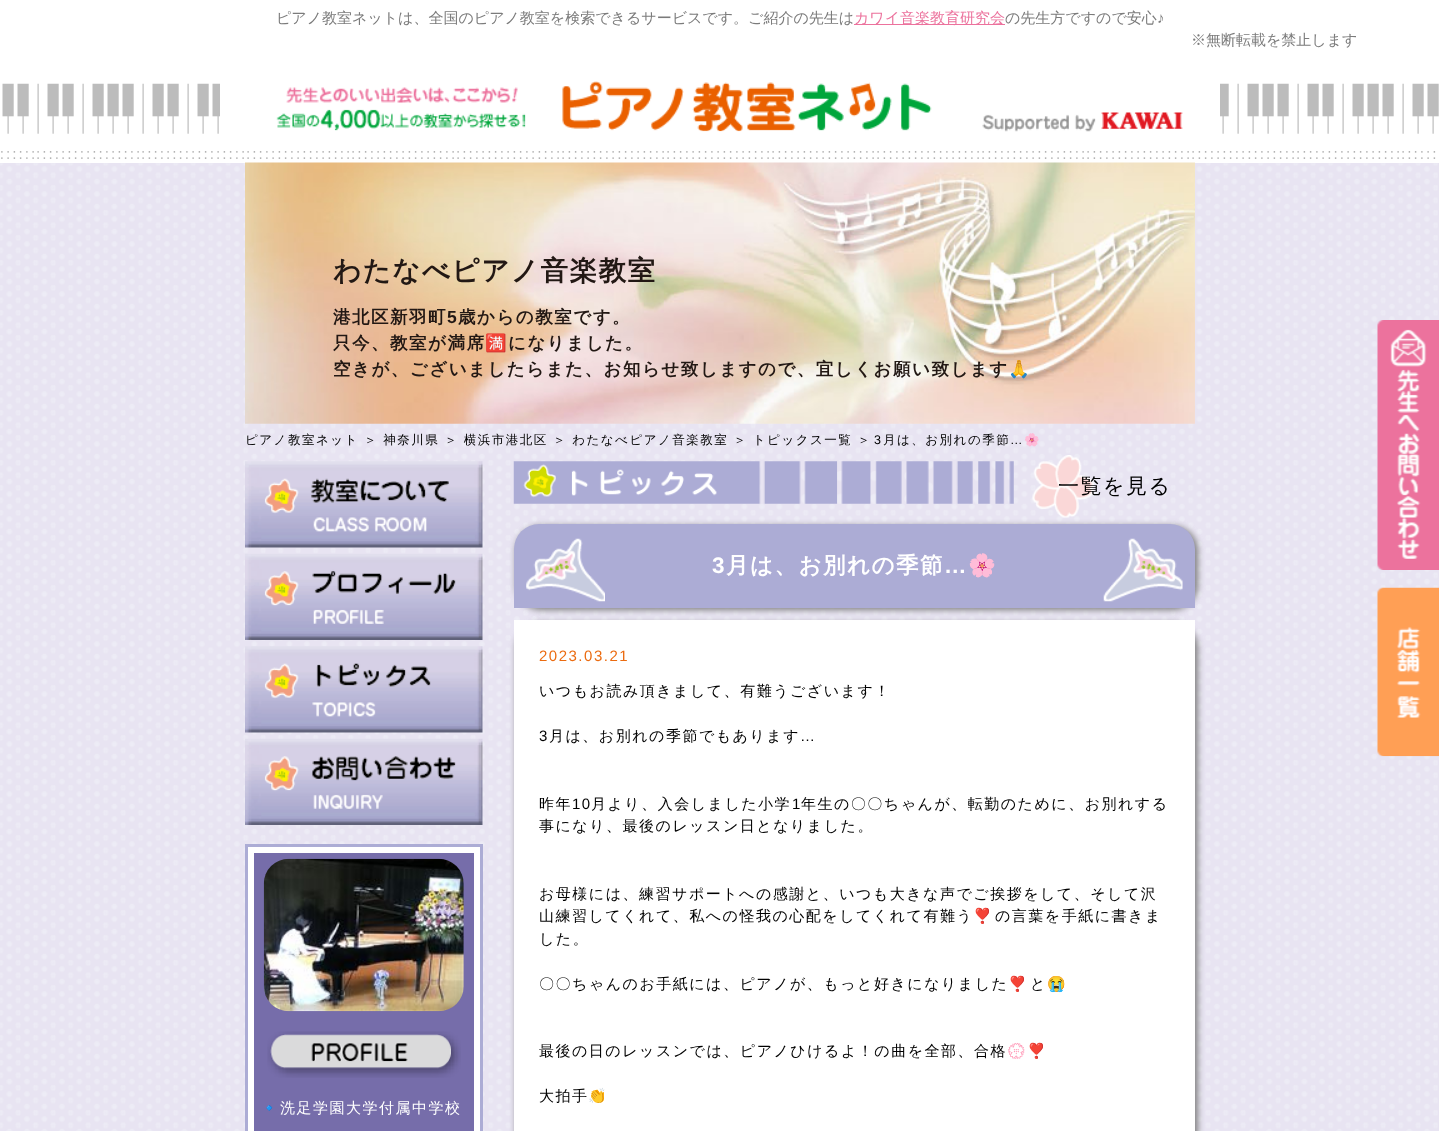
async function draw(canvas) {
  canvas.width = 1439
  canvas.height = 1131
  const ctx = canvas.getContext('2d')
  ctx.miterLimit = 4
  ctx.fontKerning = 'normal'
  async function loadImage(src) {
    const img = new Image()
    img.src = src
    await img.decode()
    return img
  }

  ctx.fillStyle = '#e8e4f2'
  ctx.fillRect(0, 0, 1439, 1131)
  ctx.drawImage(await loadImage('image0.png'), 0, 163, 1438, 968)
  ctx.fillStyle = '#fff'
  ctx.fillRect(0, 0, 1439, 163)
  ctx.drawImage(await loadImage('image1.png'), 1, 83, 1438, 76)
  ctx.font = '500 15px WenQuanYi Zen Hei'
  ctx.fillStyle = '#7b7b7b'
  ctx.fillText('ピアノ教室ネットは、全国のピアノ教室を検索できるサービスです。ご紹介の先生は', 276, 23)
  ctx.fillStyle = '#ec729d'
  ctx.fillRect(854, 24, 151, 1)
  ctx.fillText('カワイ音楽教育研究会', 854, 23)
  ctx.fillStyle = '#7b7b7b'
  ctx.fillText('の先生方ですので安心', 1005, 23)
  ctx.font = '15px Liberation Sans'
  ctx.fillText('♪', 1157, 23)
  ctx.font = '500 15px WenQuanYi Zen Hei'
  ctx.fillText('※無断転載を禁止します', 1191, 45)
  ctx.fillStyle = '#fff'
  ctx.fillRect(220, 83, 1000, 51)
  ctx.drawImage(await loadImage('image2.png'), 276, 81, 656, 51)
  ctx.drawImage(await loadImage('image3.png'), 982, 112, 201, 20)
  ctx.drawImage(await loadImage('image4.png'), 245, 162, 950, 262)
  ctx.letterSpacing = '1.5px'
  ctx.font = 'bold 27.5px WenQuanYi Zen Hei'
  ctx.fillStyle = '#221814'
  ctx.fillText('わたなべピアノ音楽教室', 333, 280)
  ctx.font = 'bold 17.5px WenQuanYi Zen Hei'
  ctx.fillText('港北区新羽町', 333, 323)
  ctx.font = 'bold 17.5px Liberation Sans'
  ctx.fillText('5', 447, 323)
  ctx.font = 'bold 17.5px WenQuanYi Zen Hei'
  ctx.fillText('歳からの教室です。', 458, 323)
  ctx.fillText('只今、教室が満席', 333, 349)
  ctx.font = 'bold 17.5px Noto Color Emoji'
  ctx.fillText('🈵', 485, 349)
  ctx.font = 'bold 17.5px WenQuanYi Zen Hei'
  ctx.fillText('になりました。', 508, 349)
  ctx.fillText('空きが、ございましたらまた、お知らせ致しますので、宜しくお願い致します', 333, 375)
  ctx.font = 'bold 17.5px Noto Color Emoji'
  ctx.fillText('🙏', 1008, 375)
  ctx.font = '500 12.5px WenQuanYi Zen Hei'
  ctx.fillStyle = '#000'
  ctx.fillText('ピアノ教室ネット ＞ 神奈川県 ＞ 横浜市港北区 ＞ わたなべピアノ音楽教室 ＞ トピックス一覧 ＞', 245, 444)
  ctx.font = '12.5px Liberation Sans'
  ctx.fillText('3', 874, 444)
  ctx.font = '500 12.5px WenQuanYi Zen Hei'
  ctx.fillText('月は、お別れの季節', 883, 444)
  ctx.font = '12.5px Liberation Sans'
  ctx.fillText('…', 1010, 444)
  ctx.font = '12.5px Noto Color Emoji'
  ctx.fillText('🌸', 1024, 444)
  ctx.drawImage(await loadImage('image5.png'), 513, 461, 501, 43)
  ctx.drawImage(await loadImage('image6.png'), 1032, 455, 63, 63)
  ctx.font = '500 21px WenQuanYi Zen Hei'
  ctx.fillText('一覧を見る', 1058, 493)
  ctx.fillStyle = '#808080'
  ctx.filter = 'blur(3px)'
  ctx.beginPath()
  ctx.roundRect(516, 526, 682, 84, 25)
  ctx.fill()
  ctx.filter = 'none'
  ctx.fillStyle = '#acacd5'
  ctx.beginPath()
  ctx.roundRect(514, 524, 681, 84, [25, 25, 0, 0])
  ctx.fill()
  ctx.drawImage(await loadImage('image7.png'), 526, 538, 79, 64)
  ctx.font = 'bold 22.5px Liberation Sans'
  ctx.fillStyle = '#fff'
  ctx.fillText('3', 712, 573)
  ctx.font = 'bold 22.5px WenQuanYi Zen Hei'
  ctx.fillText('月は、お別れの季節', 726, 573)
  ctx.font = 'bold 22.5px Liberation Sans'
  ctx.fillText('…', 944, 573)
  ctx.font = 'bold 22.5px Noto Color Emoji'
  ctx.fillText('🌸', 968, 573)
  ctx.drawImage(await loadImage('image8.png'), 1103, 538, 80, 64)
  ctx.fillStyle = '#808080'
  ctx.filter = 'blur(3px)'
  ctx.beginPath()
  ctx.roundRect(516, 623, 682, 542, 25)
  ctx.fill()
  ctx.filter = 'none'
  ctx.fillStyle = '#fff'
  ctx.fillRect(514, 620, 681, 511)
  ctx.font = '15px Liberation Sans'
  ctx.fillStyle = '#eb6b10'
  ctx.fillText('2023.03.21', 539, 661)
  ctx.font = '500 15px WenQuanYi Zen Hei'
  ctx.fillStyle = '#000'
  ctx.fillText('いつもお読み頂きまして、有難うございます！', 539, 696)
  ctx.font = '15px Liberation Sans'
  ctx.fillText('3', 539, 741)
  ctx.font = '500 15px WenQuanYi Zen Hei'
  ctx.fillText('月は、お別れの季節でもあります', 549, 741)
  ctx.font = '15px Liberation Sans'
  ctx.fillText('…', 800, 741)
  ctx.font = '500 15px WenQuanYi Zen Hei'
  ctx.fillText('昨年', 539, 809)
  ctx.font = '15px Liberation Sans'
  ctx.fillText('10', 572, 809)
  ctx.font = '500 15px WenQuanYi Zen Hei'
  ctx.fillText('月より、入会しました小学', 591, 809)
  ctx.font = '15px Liberation Sans'
  ctx.fillText('1', 792, 809)
  ctx.font = '500 15px WenQuanYi Zen Hei'
  ctx.fillText('年生の〇〇ちゃんが、転勤のために、お別れする', 801, 809)
  ctx.fillText('事になり、最後のレッスン日となりました。', 539, 831)
  ctx.fillText('お母様には、練習サポートへの感謝と、いつも大きな声でご挨拶をして、そして沢', 539, 899)
  ctx.fillText('山練習してくれて、私への怪我の心配をしてくれて有難う', 539, 921)
  ctx.font = '15px Noto Color Emoji'
  ctx.fillText('❣️', 973, 921)
  ctx.font = '500 15px WenQuanYi Zen Hei'
  ctx.fillText('の言葉を手紙に書きま', 995, 921)
  ctx.fillText('した。', 539, 944)
  ctx.fillText('〇〇ちゃんのお手紙には、ピアノが、もっと好きになりました', 539, 989)
  ctx.font = '15px Noto Color Emoji'
  ctx.fillText('❣️', 1008, 989)
  ctx.font = '500 15px WenQuanYi Zen Hei'
  ctx.fillText('と', 1030, 989)
  ctx.font = '15px Noto Color Emoji'
  ctx.fillText('😭', 1047, 989)
  ctx.font = '500 15px WenQuanYi Zen Hei'
  ctx.fillText('最後の日のレッスンでは、ピアノひけるよ！の曲を全部、合格', 539, 1056)
  ctx.font = '15px Noto Color Emoji'
  ctx.fillText('💮❣️', 1007, 1056)
  ctx.font = '500 15px WenQuanYi Zen Hei'
  ctx.fillText('大拍手', 539, 1101)
  ctx.font = '15px Noto Color Emoji'
  ctx.fillText('👏', 588, 1101)
  ctx.drawImage(await loadImage('image9.png'), 245, 461, 238, 87)
  ctx.drawImage(await loadImage('image10.png'), 245, 553, 238, 87)
  ctx.drawImage(await loadImage('image11.png'), 245, 646, 238, 87)
  ctx.drawImage(await loadImage('image12.png'), 245, 738, 238, 87)
  ctx.fillStyle = '#fff'
  ctx.beginPath()
  ctx.rect(246.5, 845.5, 235, 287)
  ctx.fill()
  ctx.strokeStyle = '#acacd5'
  ctx.lineWidth = 3
  ctx.stroke()
  ctx.fillStyle = '#766daa'
  ctx.fillRect(254, 853, 220, 278)
  ctx.drawImage(await loadImage('image13.png'), 263, 858, 201, 154)
  ctx.drawImage(await loadImage('image14.png'), 267, 1031, 194, 47)
  ctx.fillStyle = '#fff'
  ctx.fillText('🔹', 260, 1113)
  ctx.font = '500 15px WenQuanYi Zen Hei'
  ctx.fillText('洗足学園大学付属中学校', 280, 1113)
  ctx.drawImage(await loadImage('image15.png'), 1377, 320, 62, 250)
  ctx.drawImage(await loadImage('image16.png'), 1377, 587, 62, 170)
}

draw(document.querySelector('canvas'))
